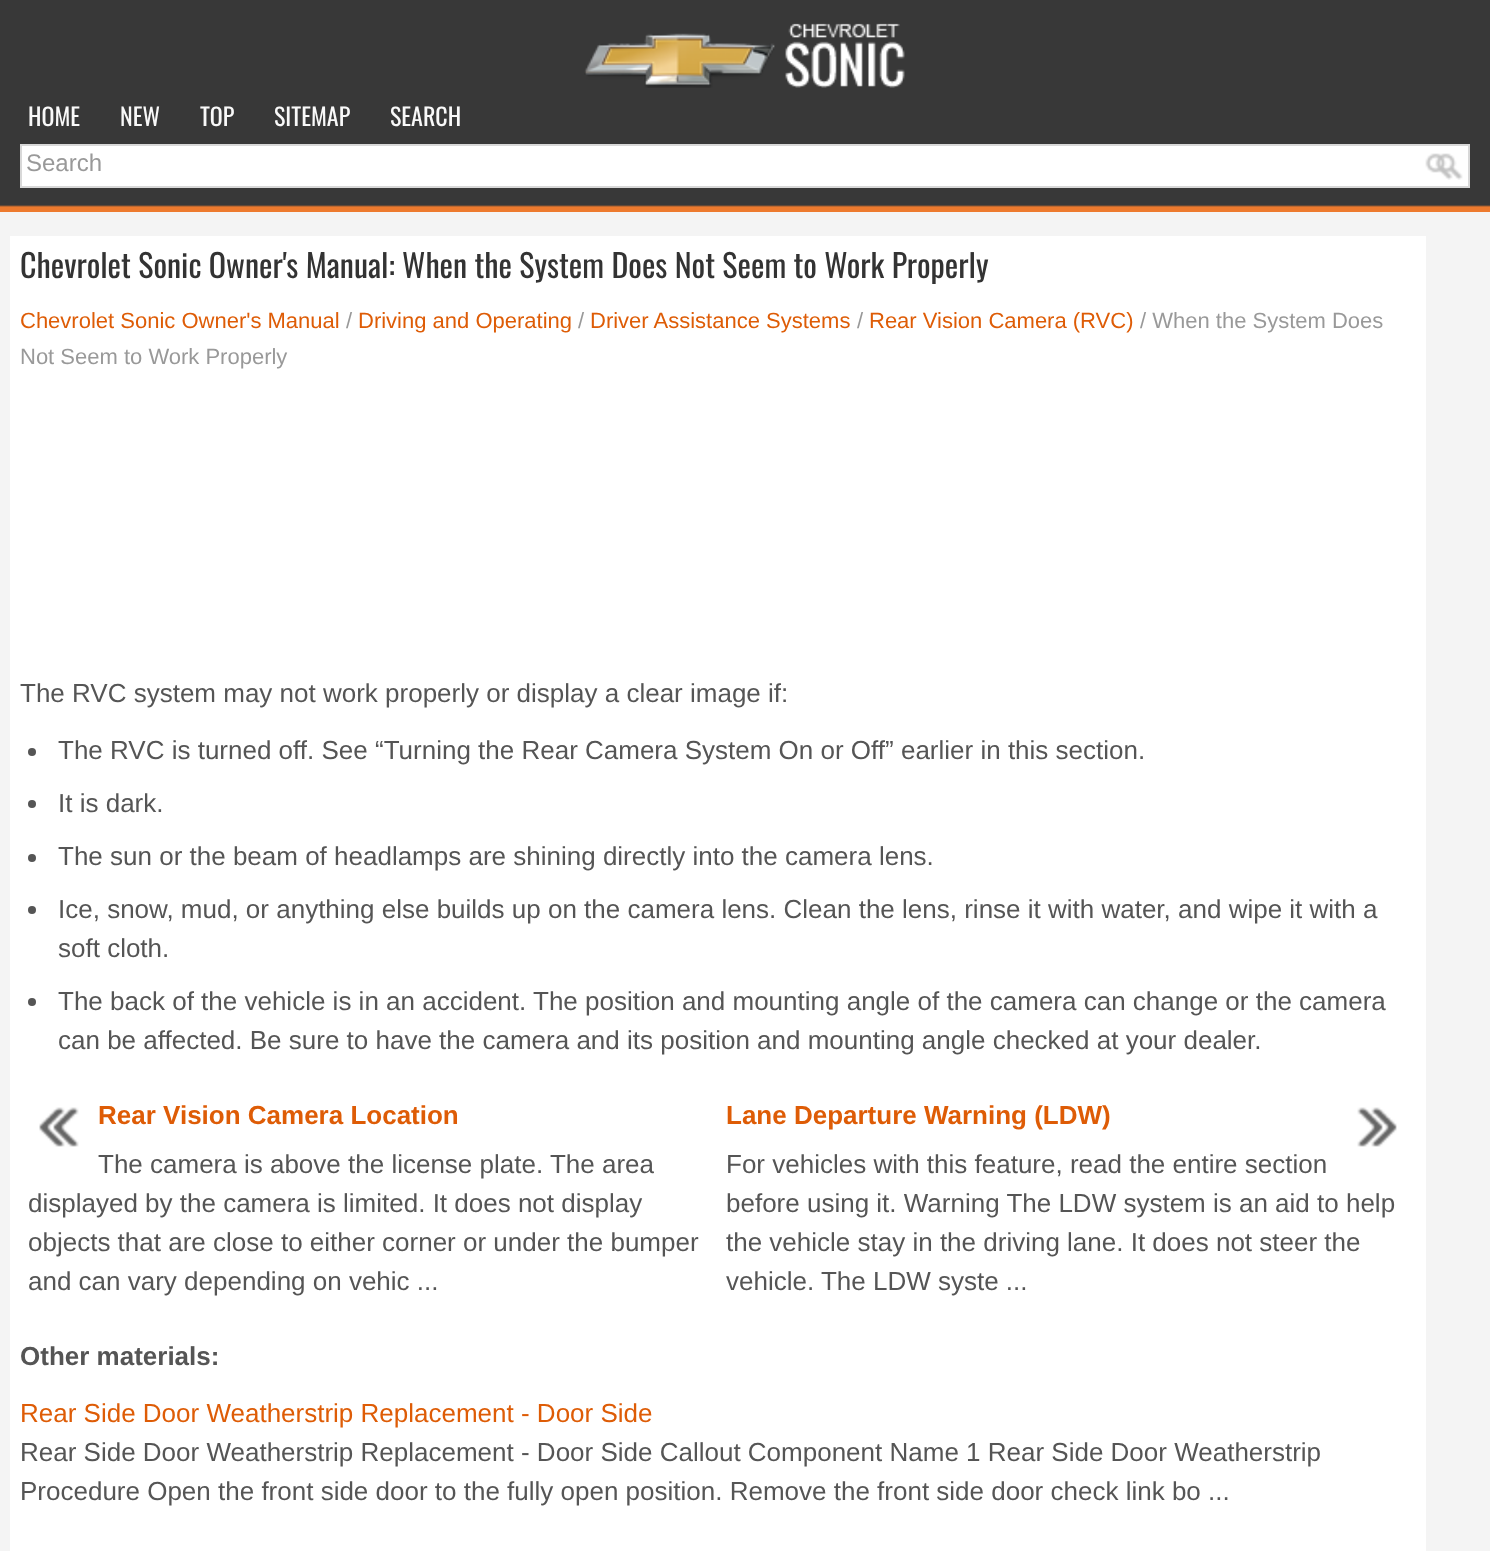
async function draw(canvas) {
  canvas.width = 1490
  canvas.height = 1551
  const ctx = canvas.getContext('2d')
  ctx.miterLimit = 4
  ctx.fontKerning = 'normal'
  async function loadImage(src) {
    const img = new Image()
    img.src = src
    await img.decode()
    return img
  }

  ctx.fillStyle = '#f4f4f4'
  ctx.fillRect(0, 0, 1490, 1551)
  ctx.drawImage(await loadImage('image0.png'), 0, 0, 1490, 212)
  ctx.drawImage(await loadImage('image1.png'), 584, 23, 321, 65)
  ctx.font = '24px Oswald'
  ctx.fillStyle = '#f9f9f9'
  ctx.fillText('HOME', 28, 126)
  ctx.fillText('NEW', 120, 126)
  ctx.fillText('TOP', 200, 126)
  ctx.fillText('SITEMAP', 274, 126)
  ctx.fillText('SEARCH', 390, 126)
  ctx.fillStyle = '#fff'
  ctx.fillRect(22, 146, 1446, 40)
  ctx.drawImage(await loadImage('image2.png'), 1425, 153, 28, 27)
  ctx.strokeStyle = '#d8d8d8'
  ctx.lineWidth = 2
  ctx.strokeRect(21, 145, 1448, 42)
  ctx.font = '24px Liberation Sans'
  ctx.fillStyle = '#999'
  ctx.fillText('Search', 26, 171)
  ctx.drawImage(await loadImage('image3.png'), 1435, 153, 28, 27)
  ctx.fillStyle = '#fff'
  ctx.fillRect(10, 236, 1416, 1315)
  ctx.font = '32px Oswald'
  ctx.fillStyle = '#333'
  ctx.fillText('Chevrolet Sonic Owner\'s Manual: When the System Does Not Seem to Work Properly', 20, 278)
  ctx.font = '22px Liberation Sans'
  ctx.fillStyle = '#de5c06'
  ctx.fillText('Chevrolet Sonic Owner\'s Manual', 20, 328)
  ctx.fillStyle = '#999'
  ctx.fillText('/', 346, 328)
  ctx.fillStyle = '#de5c06'
  ctx.fillText('Driving and Operating', 358, 328)
  ctx.fillStyle = '#999'
  ctx.fillText('/', 578, 328)
  ctx.fillStyle = '#de5c06'
  ctx.fillText('Driver Assistance Systems', 590, 328)
  ctx.fillStyle = '#999'
  ctx.fillText('/', 857, 328)
  ctx.fillStyle = '#de5c06'
  ctx.fillText('Rear Vision Camera (RVC)', 869, 328)
  ctx.fillStyle = '#999'
  ctx.fillText('/ When the System Does', 1140, 328)
  ctx.fillText('Not Seem to Work Properly', 20, 364)
  ctx.font = '26px Liberation Sans'
  ctx.fillStyle = '#555'
  ctx.fillText('The RVC system may not work properly or display a clear image if:', 20, 702)
  ctx.beginPath()
  ctx.arc(32, 752, 4, 0, 2 * Math.PI)
  ctx.fill()
  ctx.fillText('The RVC is turned off. See “Turning the Rear Camera System On or Off” earlier in this section.', 58, 759)
  ctx.beginPath()
  ctx.arc(32, 804, 4, 0, 2 * Math.PI)
  ctx.fill()
  ctx.fillText('It is dark.', 58, 812)
  ctx.beginPath()
  ctx.arc(32, 858, 4, 0, 2 * Math.PI)
  ctx.fill()
  ctx.fillText('The sun or the beam of headlamps are shining directly into the camera lens.', 58, 865)
  ctx.beginPath()
  ctx.arc(32, 910, 4, 0, 2 * Math.PI)
  ctx.fill()
  ctx.fillText('Ice, snow, mud, or anything else builds up on the camera lens. Clean the lens, rinse it with water, and wipe it with a', 58, 918)
  ctx.fillText('soft cloth.', 58, 957)
  ctx.beginPath()
  ctx.arc(32, 1002, 4, 0, 2 * Math.PI)
  ctx.fill()
  ctx.fillText('The back of the vehicle is in an accident. The position and mounting angle of the camera can change or the camera', 58, 1010)
  ctx.fillText('can be affected. Be sure to have the camera and its position and mounting angle checked at your dealer.', 58, 1049)
  ctx.drawImage(await loadImage('image4.png'), 39, 1107, 40, 40)
  ctx.font = 'bold 26px Liberation Sans'
  ctx.fillStyle = '#de5c06'
  ctx.fillText('Rear Vision Camera Location', 98, 1124)
  ctx.font = '26px Liberation Sans'
  ctx.fillStyle = '#555'
  ctx.fillText('The camera is above the license plate. The area', 98, 1173)
  ctx.fillText('displayed by the camera is limited. It does not display', 28, 1212)
  ctx.fillText('objects that are close to either corner or under the bumper', 28, 1251)
  ctx.fillText('and can vary depending on vehic ...', 28, 1290)
  ctx.font = 'bold 26px Liberation Sans'
  ctx.fillStyle = '#de5c06'
  ctx.fillText('Lane Departure Warning (LDW)', 726, 1124)
  ctx.drawImage(await loadImage('image5.png'), 1357, 1107, 40, 40)
  ctx.font = '26px Liberation Sans'
  ctx.fillStyle = '#555'
  ctx.fillText('For vehicles with this feature, read the entire section', 726, 1173)
  ctx.fillText('before using it. Warning The LDW system is an aid to help', 726, 1212)
  ctx.fillText('the vehicle stay in the driving lane. It does not steer the', 726, 1251)
  ctx.fillText('vehicle. The LDW syste ...', 726, 1290)
  ctx.font = 'bold 26px Liberation Sans'
  ctx.fillText('Other materials:', 20, 1365)
  ctx.font = '26px Liberation Sans'
  ctx.fillStyle = '#de5c06'
  ctx.fillText('Rear Side Door Weatherstrip Replacement - Door Side', 20, 1422)
  ctx.fillStyle = '#555'
  ctx.fillText('Rear Side Door Weatherstrip Replacement - Door Side Callout Component Name 1 Rear Side Door Weatherstrip', 20, 1461)
  ctx.fillText('Procedure Open the front side door to the fully open position. Remove the front side door check link bo ...', 20, 1500)
}

draw(document.querySelector('canvas'))
